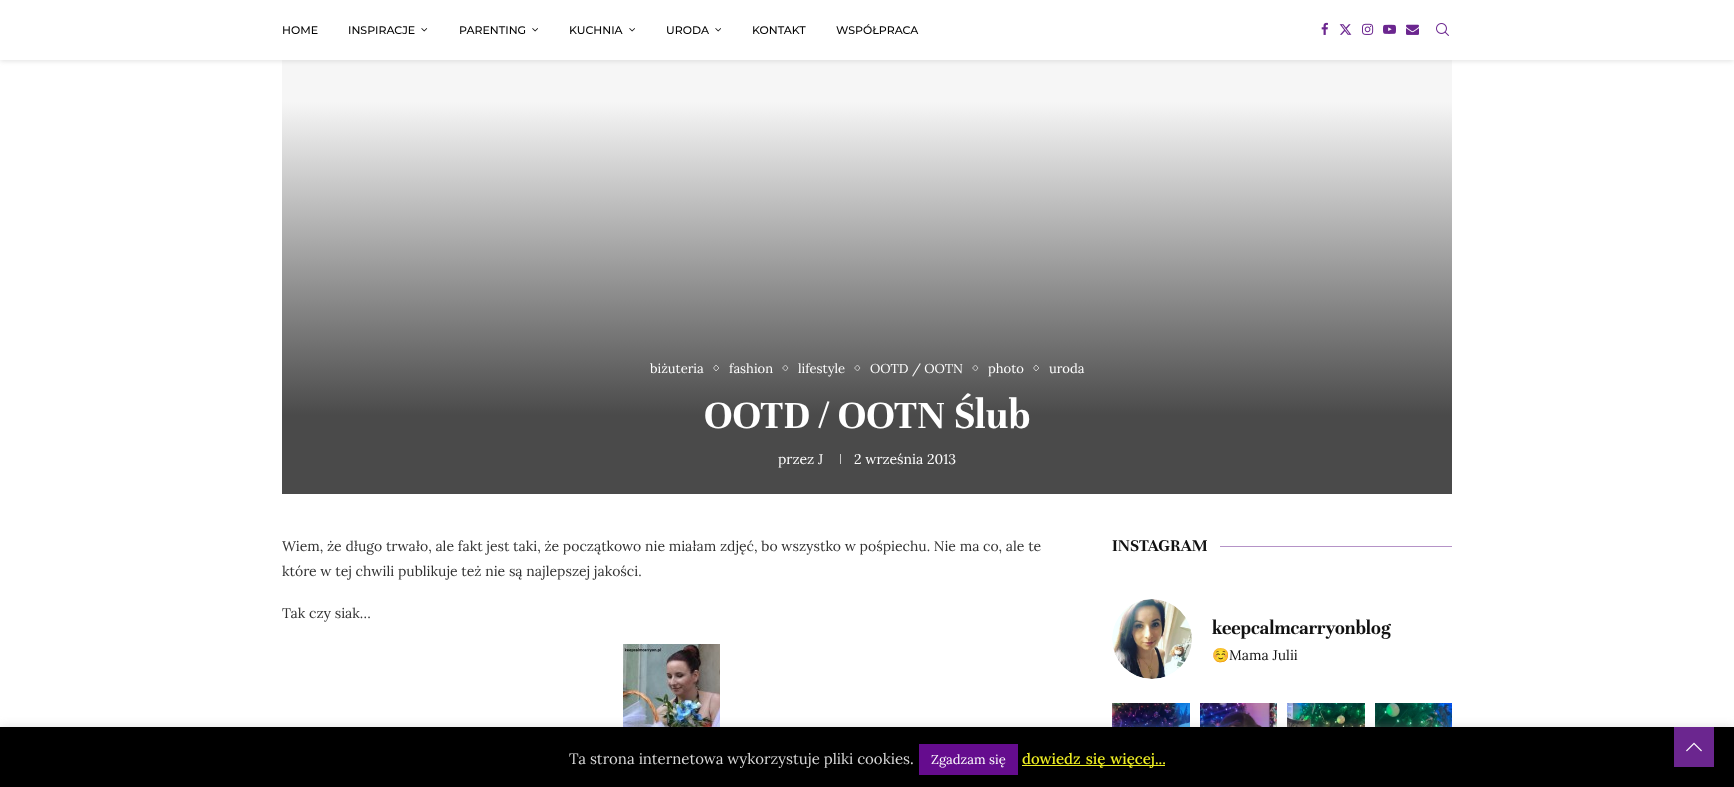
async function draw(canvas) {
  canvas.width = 1734
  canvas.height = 787
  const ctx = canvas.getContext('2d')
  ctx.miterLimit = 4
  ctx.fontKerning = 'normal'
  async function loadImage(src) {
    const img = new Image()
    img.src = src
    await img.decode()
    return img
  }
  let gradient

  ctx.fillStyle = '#fff'
  ctx.fillRect(0, 0, 1734, 787)
  gradient = ctx.createLinearGradient(867, -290, 867, 494)
  gradient.addColorStop(0.5, '#f6f6f6')
  gradient.addColorStop(0.9, '#4a4a4a')
  ctx.fillStyle = gradient
  ctx.fillRect(282, 60, 1170, 434)
  ctx.fillStyle = '#bebebe75'
  ctx.filter = 'blur(2.5px)'
  ctx.beginPath()
  ctx.rect(0, 1, 1734, 60)
  ctx.fill()
  ctx.filter = 'none'
  ctx.fillStyle = '#fff'
  ctx.fillRect(0, 0, 1734, 60)
  ctx.font = '500 11px Montserrat'
  ctx.fillStyle = '#050505'
  ctx.fillText('HOME', 282, 34)
  ctx.fillText('INSPIRACJE', 348, 34)
  ctx.drawImage(await loadImage('image0.png'), 421, 28, 7, 4)
  ctx.fillText('PARENTING', 459, 34)
  ctx.drawImage(await loadImage('image1.png'), 532, 28, 6, 4)
  ctx.fillText('KUCHNIA', 569, 34)
  ctx.drawImage(await loadImage('image2.png'), 629, 28, 6, 4)
  ctx.fillText('URODA', 666, 34)
  ctx.drawImage(await loadImage('image3.png'), 715, 28, 6, 4)
  ctx.fillText('KONTAKT', 752, 34)
  ctx.fillText('WSPÓŁPRACA', 836, 34)
  ctx.drawImage(await loadImage('image4.png'), 1321, 22, 7, 13)
  ctx.drawImage(await loadImage('image5.png'), 1339, 24, 13, 11)
  ctx.drawImage(await loadImage('image6.png'), 1362, 23, 12, 12)
  ctx.drawImage(await loadImage('image7.png'), 1383, 24, 13, 10)
  ctx.drawImage(await loadImage('image8.png'), 1406, 24, 13, 11)
  ctx.drawImage(await loadImage('image9.png'), 1436, 23, 13, 13)
  ctx.font = '13px Lora'
  ctx.fillStyle = '#fff'
  ctx.fillText('biżuteria', 650, 373)
  ctx.beginPath()
  ctx.moveTo(716, 365)
  ctx.lineTo(719, 368)
  ctx.lineTo(716, 371)
  ctx.lineTo(713.5, 368)
  ctx.closePath()
  ctx.strokeStyle = '#c9c9c9'
  ctx.stroke()
  ctx.fillText('fashion', 729, 373)
  ctx.beginPath()
  ctx.moveTo(785.5, 365)
  ctx.lineTo(788, 368)
  ctx.lineTo(785.5, 371)
  ctx.lineTo(782.5, 368)
  ctx.closePath()
  ctx.stroke()
  ctx.fillText('lifestyle', 798, 373)
  ctx.beginPath()
  ctx.moveTo(857.5, 365)
  ctx.lineTo(860, 368)
  ctx.lineTo(857.5, 371)
  ctx.lineTo(854.5, 368)
  ctx.closePath()
  ctx.stroke()
  ctx.fillText('OOTD / OOTN', 870, 373)
  ctx.beginPath()
  ctx.moveTo(975.5, 365)
  ctx.lineTo(978, 368)
  ctx.lineTo(975.5, 371)
  ctx.lineTo(972.5, 368)
  ctx.closePath()
  ctx.stroke()
  ctx.fillText('photo', 988, 373)
  ctx.beginPath()
  ctx.moveTo(1036, 365)
  ctx.lineTo(1039, 368)
  ctx.lineTo(1036, 371)
  ctx.lineTo(1033.5, 368)
  ctx.closePath()
  ctx.stroke()
  ctx.fillText('uroda', 1049, 373)
  ctx.font = 'bold 42px Unna'
  ctx.fillText('OOTD / OOTN Ślub', 704, 428)
  ctx.font = '14px Lora'
  ctx.fillText('przez J', 778, 464)
  ctx.fillStyle = '#c9c9c9'
  ctx.fillRect(840, 454, 1, 10)
  ctx.fillStyle = '#fff'
  ctx.fillText('2 września 2013', 854, 464)
  ctx.fillStyle = '#313131'
  ctx.fillText('Wiem, że długo trwało, ale fakt jest taki, że początkowo nie miałam zdjęć, bo wszystko w pośpiechu. Nie ma co, ale te', 282, 551)
  ctx.fillText('które w tej chwili publikuje też nie są najlepszej jakości.', 282, 576)
  ctx.fillText('Tak czy siak…', 282, 618)
  ctx.drawImage(await loadImage('image10.png'), 623, 644, 97, 83)
  ctx.font = 'bold 18px Unna'
  ctx.fillStyle = '#111'
  ctx.fillText('INSTAGRAM', 1112, 551)
  ctx.fillStyle = '#b593c7'
  ctx.fillRect(1220, 546, 232, 1)
  ctx.drawImage(await loadImage('image11.png'), 1112, 599, 80, 80)
  ctx.font = 'bold 20px Unna'
  ctx.fillStyle = '#111'
  ctx.fillText('keepcalmcarryonblog', 1212, 634)
  ctx.font = '14px Noto Color Emoji'
  ctx.fillText('☺️', 1212, 660)
  ctx.font = '14px Lora'
  ctx.fillText('Mama Julii', 1229, 660)
  ctx.drawImage(await loadImage('image12.png'), 1112, 703, 78, 24)
  ctx.drawImage(await loadImage('image13.png'), 1200, 703, 77, 24)
  ctx.drawImage(await loadImage('image14.png'), 1287, 703, 78, 24)
  ctx.drawImage(await loadImage('image15.png'), 1375, 703, 77, 24)
  ctx.fillStyle = '#acabab4d'
  ctx.filter = 'blur(5px)'
  ctx.beginPath()
  ctx.rect(0, 726, 1734, 60)
  ctx.fill()
  ctx.filter = 'none'
  ctx.fillStyle = '#000'
  ctx.fillRect(0, 727, 1734, 60)
  ctx.font = '15px Lora'
  ctx.fillStyle = '#d8d8d8'
  ctx.fillText('Ta strona internetowa wykorzystuje pliki cookies.', 569, 764)
  ctx.fillStyle = '#650c8e'
  ctx.fillRect(919, 744, 99, 31)
  ctx.font = '13px Lora'
  ctx.fillStyle = '#fff'
  ctx.fillText('Zgadzam się', 931, 764)
  ctx.fillStyle = '#ee2'
  ctx.fillRect(1022, 765, 143, 1)
  ctx.wordSpacing = '1px'
  ctx.font = '500 15px Lora'
  ctx.fillText('dowiedz się więcej...', 1022, 764)
  ctx.fillStyle = '#6b268f'
  ctx.fillRect(1674, 727, 40, 40)
  ctx.drawImage(await loadImage('image16.png'), 1686, 742, 16, 10)
}

draw(document.querySelector('canvas'))
